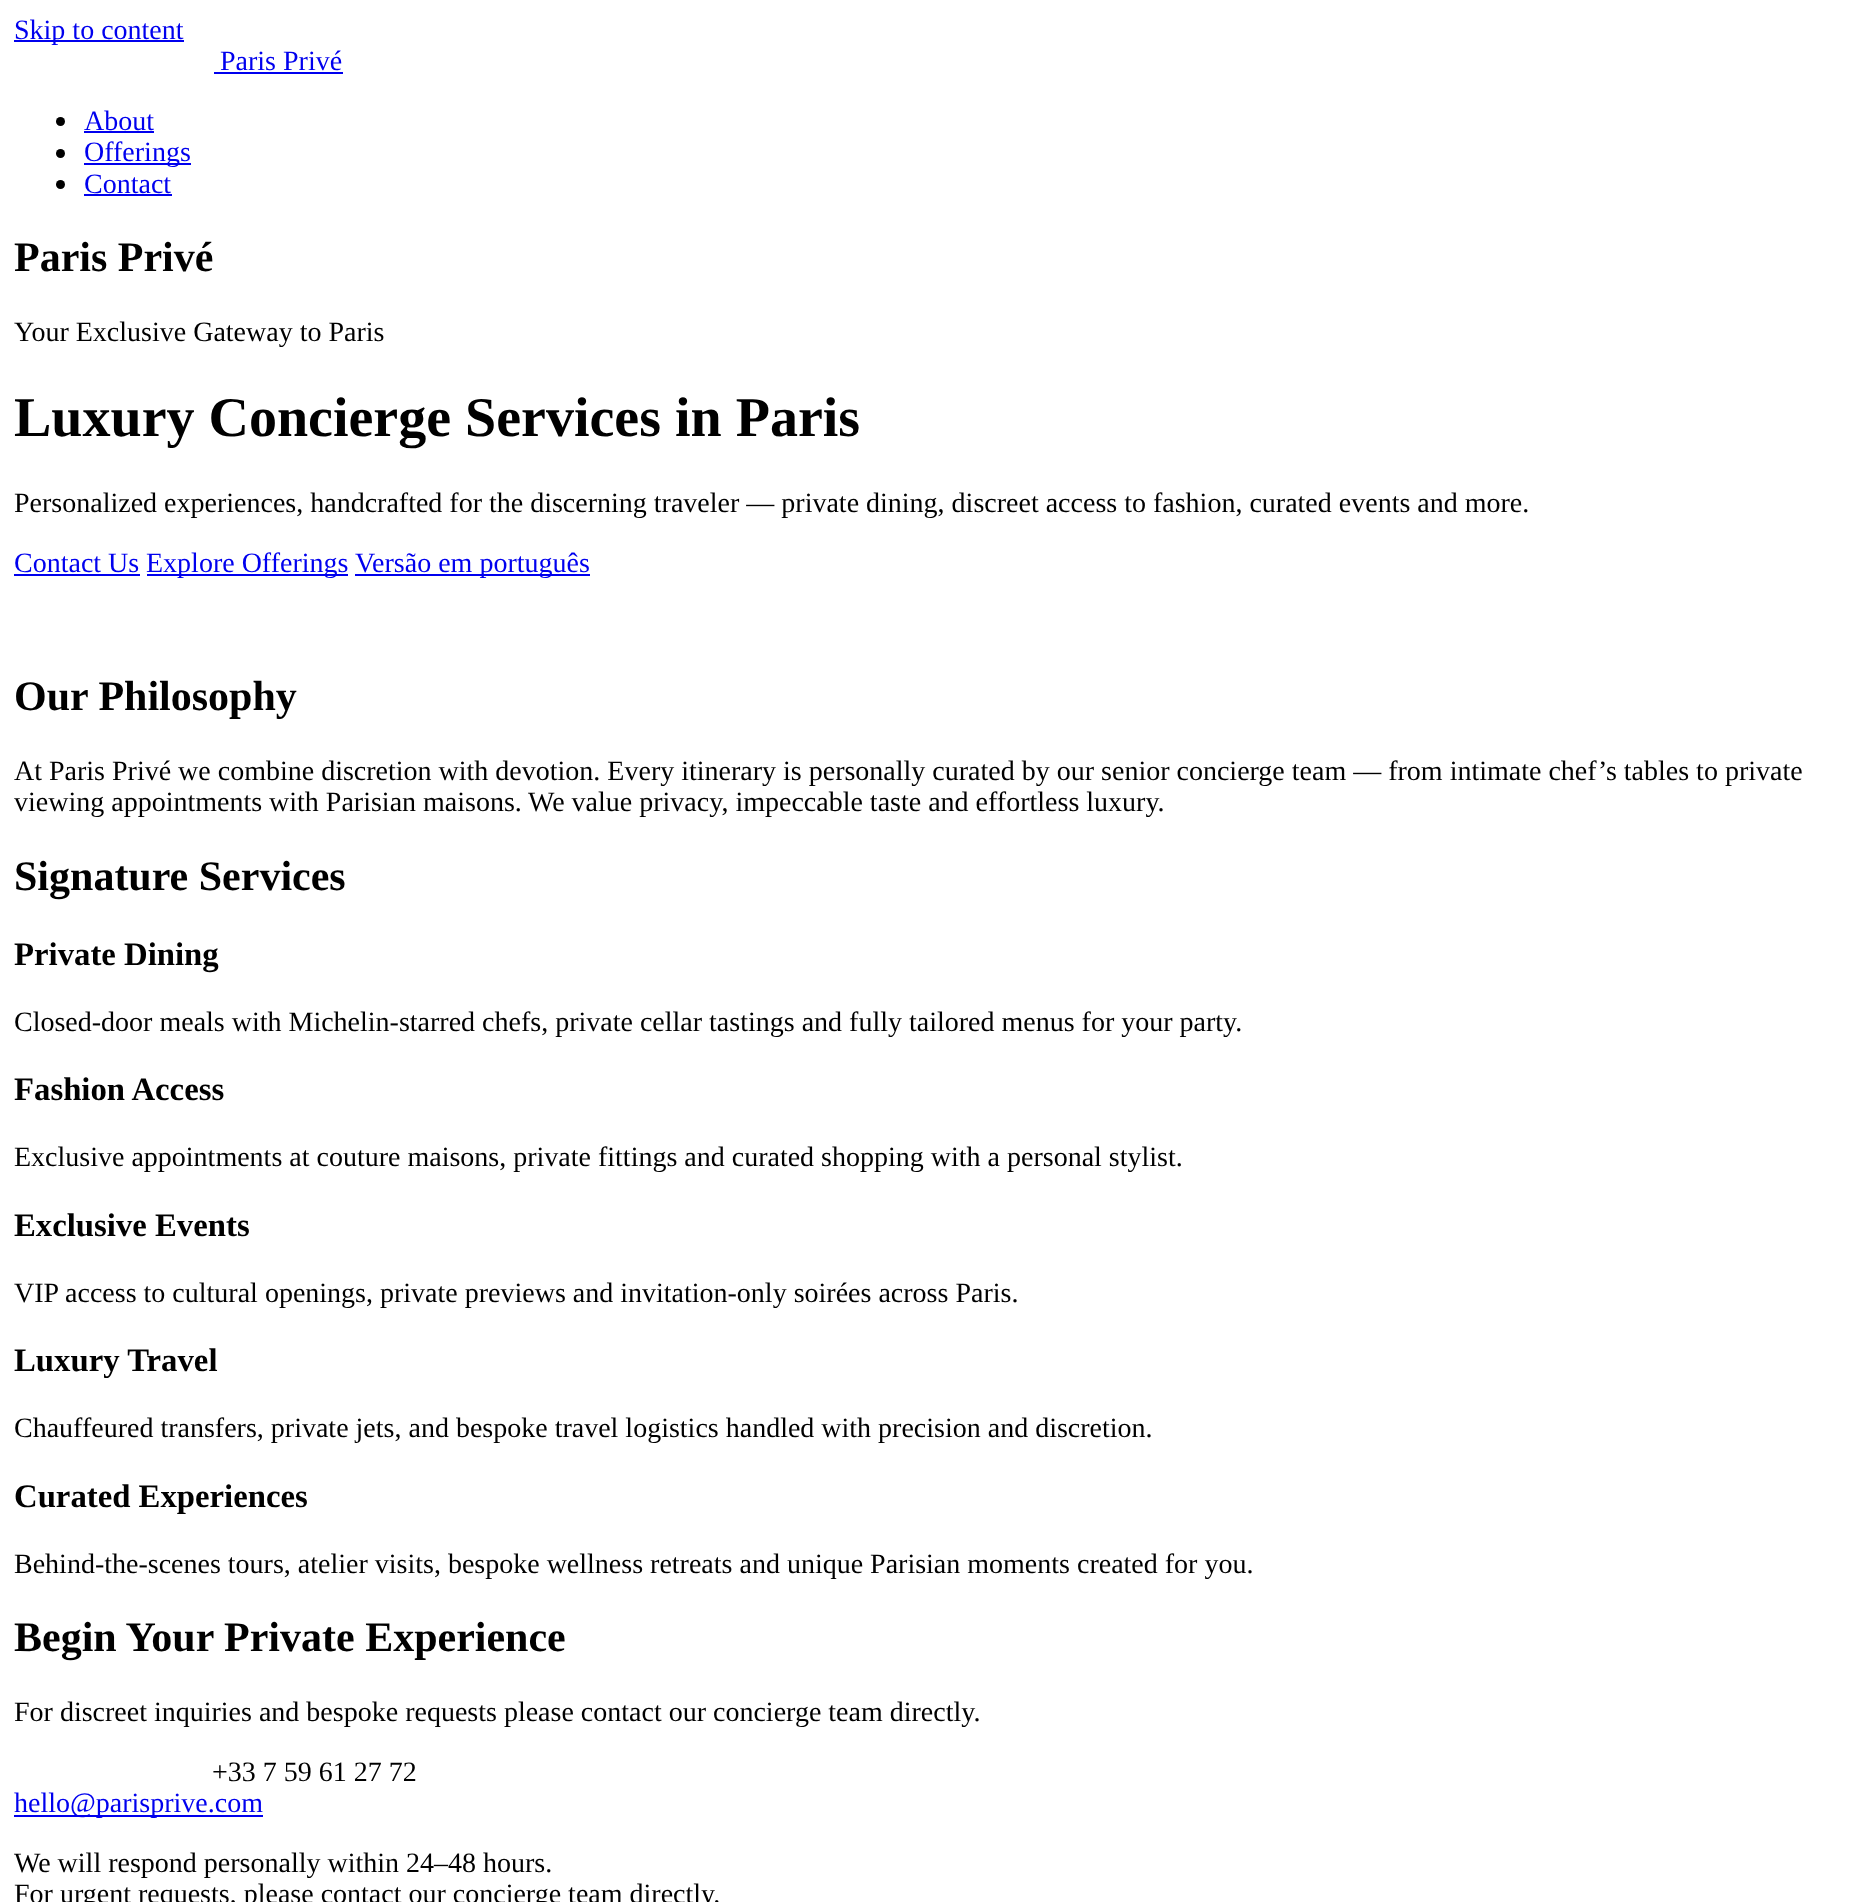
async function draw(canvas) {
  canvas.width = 1873
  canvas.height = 1902
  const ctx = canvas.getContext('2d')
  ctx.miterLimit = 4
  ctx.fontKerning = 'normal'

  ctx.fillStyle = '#fff'
  ctx.fillRect(0, 0, 1873, 1902)
  ctx.fillStyle = '#00e'
  ctx.fillRect(14, 40, 170, 2)
  ctx.font = '28px Liberation Serif'
  ctx.fillText('Skip to content', 14, 39)
  ctx.fillText('Paris Privé', 220, 70)
  ctx.fillRect(214, 72, 129, 2)
  ctx.fillStyle = '#000'
  ctx.beginPath()
  ctx.arc(60.5, 121.5, 4.5, 0, 2 * Math.PI)
  ctx.fill()
  ctx.fillStyle = '#00e'
  ctx.fillText('About', 84, 130)
  ctx.fillRect(84, 131, 70, 2)
  ctx.fillStyle = '#000'
  ctx.beginPath()
  ctx.arc(60.5, 153.5, 4.5, 0, 2 * Math.PI)
  ctx.fill()
  ctx.fillStyle = '#00e'
  ctx.fillRect(84, 163, 107, 2)
  ctx.fillText('Offerings', 84, 161)
  ctx.fillStyle = '#000'
  ctx.beginPath()
  ctx.arc(60.5, 184.5, 4.5, 0, 2 * Math.PI)
  ctx.fill()
  ctx.fillStyle = '#00e'
  ctx.fillText('Contact', 84, 193)
  ctx.fillRect(84, 194, 88, 2)
  ctx.font = 'bold 42px Liberation Serif'
  ctx.fillStyle = '#000'
  ctx.fillText('Paris Privé', 14, 271)
  ctx.font = '28px Liberation Serif'
  ctx.fillText('Your Exclusive Gateway to Paris', 14, 341)
  ctx.font = 'bold 56px Liberation Serif'
  ctx.fillText('Luxury Concierge Services in Paris', 14, 436)
  ctx.font = '28px Liberation Serif'
  ctx.fillText('Personalized experiences, handcrafted for the discerning traveler — private dining, discreet access to fashion, curated events and more.', 14, 512)
  ctx.fillStyle = '#00e'
  ctx.fillText('Contact Us', 14, 572)
  ctx.fillRect(14, 574, 126, 2)
  ctx.fillRect(147, 574, 201, 2)
  ctx.fillText('Explore Offerings', 146, 572)
  ctx.fillRect(355, 574, 235, 2)
  ctx.fillText('Versão em português', 355, 572)
  ctx.font = 'bold 42px Liberation Serif'
  ctx.fillStyle = '#000'
  ctx.fillText('Our Philosophy', 14, 710)
  ctx.font = '28px Liberation Serif'
  ctx.fillText('At Paris Privé we combine discretion with devotion. Every itinerary is personally curated by our senior concierge team — from intimate chef’s tables to private', 14, 780)
  ctx.fillText('viewing appointments with Parisian maisons.', 14, 811)
  ctx.fillText('We value privacy, impeccable taste and effortless luxury.', 528, 811)
  ctx.font = 'bold 42px Liberation Serif'
  ctx.fillText('Signature Services', 14, 890)
  ctx.font = 'bold 32.75px Liberation Serif'
  ctx.fillText('Private Dining', 14, 965)
  ctx.font = '28px Liberation Serif'
  ctx.fillText('Closed-door meals with Michelin-starred chefs, private cellar tastings and fully tailored menus for your party.', 14, 1031)
  ctx.font = 'bold 32.75px Liberation Serif'
  ctx.fillText('Fashion Access', 14, 1100)
  ctx.font = '28px Liberation Serif'
  ctx.fillText('Exclusive appointments at couture maisons, private fittings and curated shopping with a personal stylist.', 14, 1166)
  ctx.font = 'bold 32.75px Liberation Serif'
  ctx.fillText('Exclusive Events', 14, 1236)
  ctx.font = '28px Liberation Serif'
  ctx.fillText('VIP access to cultural openings, private previews and invitation-only soirées across Paris.', 14, 1302)
  ctx.font = 'bold 32.75px Liberation Serif'
  ctx.fillText('Luxury Travel', 14, 1371)
  ctx.font = '28px Liberation Serif'
  ctx.fillText('Chauffeured transfers, private jets, and bespoke travel logistics handled with precision and discretion.', 14, 1437)
  ctx.font = 'bold 32.75px Liberation Serif'
  ctx.fillText('Curated Experiences', 14, 1507)
  ctx.font = '28px Liberation Serif'
  ctx.fillText('Behind-the-scenes tours, atelier visits, bespoke wellness retreats and unique Parisian moments created for you.', 14, 1573)
  ctx.font = 'bold 42px Liberation Serif'
  ctx.fillText('Begin Your Private Experience', 14, 1651)
  ctx.font = '28px Liberation Serif'
  ctx.fillText('For discreet inquiries and bespoke requests please contact our concierge team directly.', 14, 1721)
  ctx.fillText('+33 7 59 61 27 72', 212, 1781)
  ctx.fillStyle = '#00e'
  ctx.fillRect(14, 1815, 249, 2)
  ctx.fillText('hello@parisprive.com', 14, 1812)
  ctx.fillStyle = '#000'
  ctx.fillText('We will respond personally within 24–48 hours.', 14, 1872)
  ctx.fillText('For urgent requests, please contact our concierge team directly.', 14, 1903)
}

draw(document.querySelector('canvas'))
